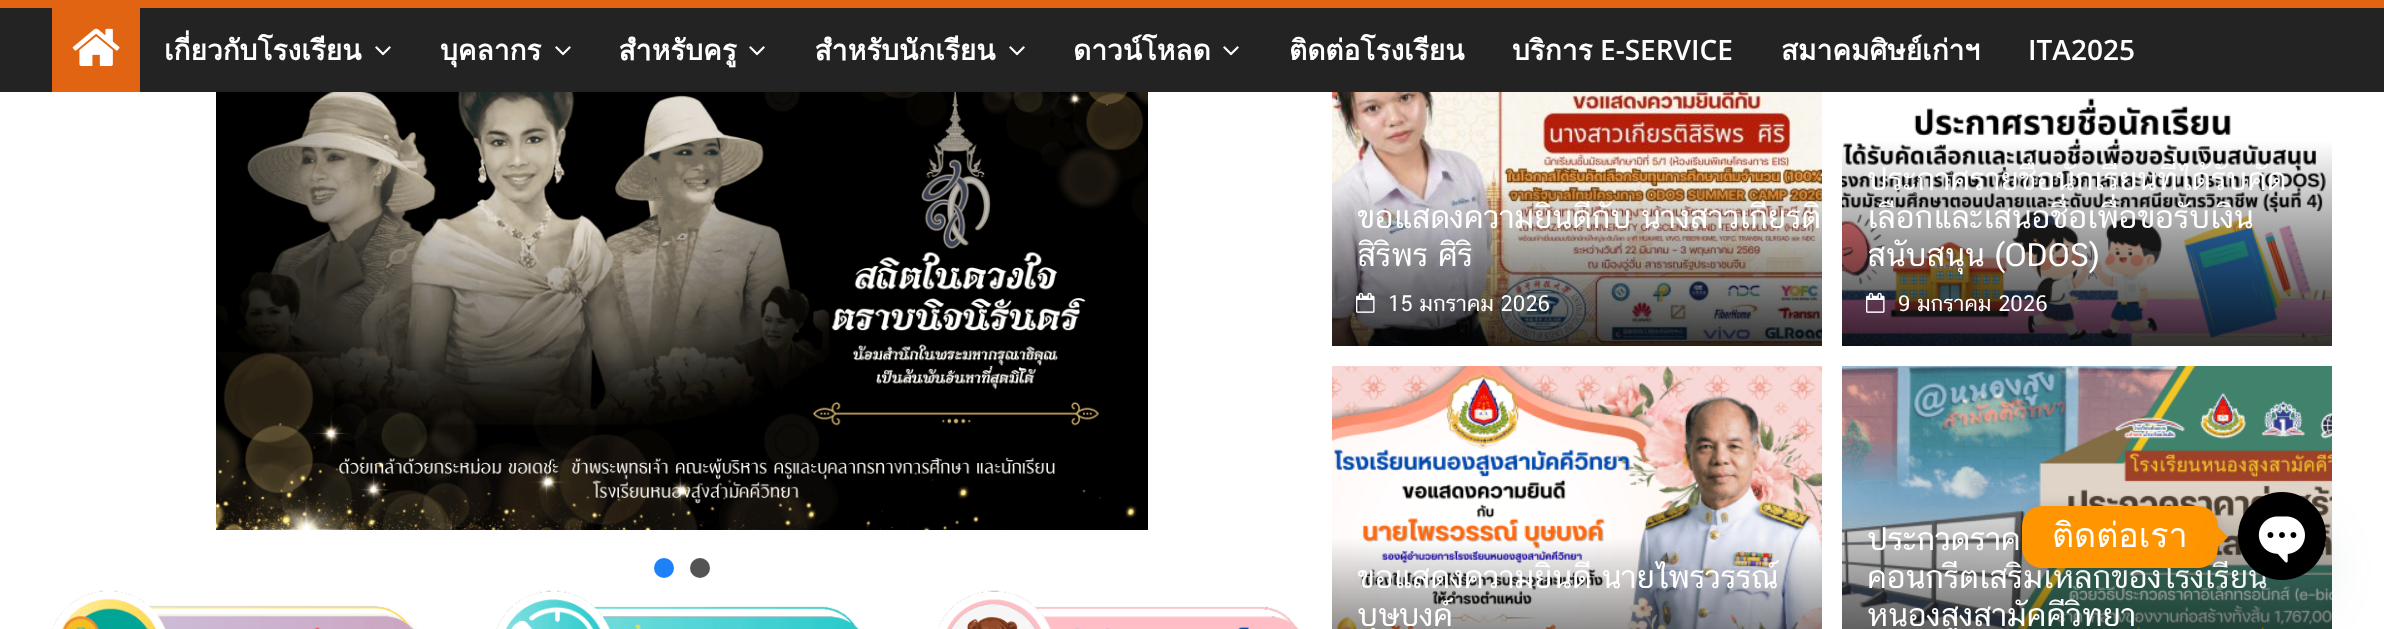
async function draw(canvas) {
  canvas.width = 2384
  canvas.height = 629
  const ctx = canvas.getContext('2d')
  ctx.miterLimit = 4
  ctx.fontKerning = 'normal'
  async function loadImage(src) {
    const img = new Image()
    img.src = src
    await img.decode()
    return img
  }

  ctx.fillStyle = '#fff'
  ctx.fillRect(0, 0, 2384, 629)
  ctx.fillStyle = '#232323'
  ctx.fillRect(0, 8, 2384, 84)
  ctx.fillStyle = '#e06411'
  ctx.fillRect(0, 0, 2384, 8)
  ctx.fillRect(52, 8, 88, 84)
  ctx.drawImage(await loadImage('image0.png'), 72, 28, 48, 38)
  ctx.font = 'bold 28px Loma'
  ctx.fillStyle = '#fff'
  ctx.fillText('เกี่ยวกับโรงเรียน', 164, 60)
  ctx.drawImage(await loadImage('image1.png'), 375, 46, 16, 10)
  ctx.fillText('บุคลากร', 440, 60)
  ctx.drawImage(await loadImage('image1.png'), 555, 46, 16, 10)
  ctx.fillText('สำหรับครู', 619, 60)
  ctx.drawImage(await loadImage('image1.png'), 749, 46, 16, 10)
  ctx.fillText('สำหรับนักเรียน', 815, 60)
  ctx.drawImage(await loadImage('image1.png'), 1009, 46, 16, 10)
  ctx.fillText('ดาวน์โหลด', 1073, 60)
  ctx.drawImage(await loadImage('image1.png'), 1223, 46, 16, 10)
  ctx.fillText('ติดต่อโรงเรียน', 1289, 60)
  ctx.fillText('บริการ', 1512, 60)
  ctx.font = '600 28px Open Sans'
  ctx.fillText('E-SERVICE', 1600, 60)
  ctx.font = 'bold 28px Loma'
  ctx.fillText('สมาคมศิษย์เก่าฯ', 1781, 60)
  ctx.font = '600 28px Open Sans'
  ctx.fillText('ITA2025', 2028, 60)
  ctx.drawImage(await loadImage('image2.png'), 216, 92, 932, 438)
  ctx.fillStyle = '#1d81f9'
  ctx.beginPath()
  ctx.arc(664, 568, 10, 0, 2 * Math.PI)
  ctx.fill()
  ctx.fillStyle = '#545454'
  ctx.beginPath()
  ctx.arc(700, 568, 10, 0, 2 * Math.PI)
  ctx.fill()
  ctx.drawImage(await loadImage('image3.png'), 52, 590, 365, 39)
  ctx.drawImage(await loadImage('image4.png'), 496, 590, 363, 39)
  ctx.drawImage(await loadImage('image5.png'), 938, 590, 361, 39)
  ctx.drawImage(await loadImage('image6.png'), 1332, 92, 490, 254)
  ctx.font = '32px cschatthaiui'
  ctx.fillStyle = '#fff'
  ctx.fillText('ขอแสดงความยินดีกับ นางสาวเกียรติ', 1357, 228)
  ctx.fillText('สิริพร ศิริ', 1357, 266)
  ctx.drawImage(await loadImage('image7.png'), 1356, 292, 19, 21)
  ctx.font = '22px cschatthaiui'
  ctx.fillText('15 มกราคม 2026', 1388, 311)
  ctx.drawImage(await loadImage('image8.png'), 1842, 92, 490, 254)
  ctx.font = '32px cschatthaiui'
  ctx.fillText('ประกาศรายชื่อนักเรียนที่ได้รับคัด', 1867, 190)
  ctx.fillText('เลือกและเสนอชื่อเพื่อขอรับเงิน', 1867, 228)
  ctx.fillText('สนับสนุน (ODOS)', 1867, 266)
  ctx.drawImage(await loadImage('image9.png'), 1866, 292, 19, 21)
  ctx.font = '22px cschatthaiui'
  ctx.fillText('9 มกราคม 2026', 1898, 311)
  ctx.drawImage(await loadImage('image10.png'), 1332, 366, 490, 263)
  ctx.font = '32px cschatthaiui'
  ctx.fillText('ขอแสดงความยินดี นายไพรวรรณ์', 1357, 588)
  ctx.fillText('บุษบงค์', 1357, 626)
  ctx.drawImage(await loadImage('image11.png'), 1842, 366, 490, 263)
  ctx.fillText('ประกวดราค', 1867, 550)
  ctx.fillText('คอนกรีตเสริมเหล็กของโรงเรียน', 1867, 588)
  ctx.fillText('หนองสูงสามัคคีวิทยา', 1867, 626)
  ctx.fillStyle = '#00000026'
  ctx.filter = 'blur(7.5px)'
  ctx.beginPath()
  ctx.roundRect(2022, 508, 196, 62, 20)
  ctx.fill()
  ctx.filter = 'none'
  ctx.fillStyle = '#ff9500'
  ctx.beginPath()
  ctx.roundRect(2022, 506, 196, 62, 20)
  ctx.fill()
  ctx.font = '34px Loma'
  ctx.fillStyle = '#fff'
  ctx.fillText('ติดต่อเรา', 2052, 547)
  ctx.fillStyle = '#ff9500'
  ctx.beginPath()
  ctx.moveTo(2218, 547)
  ctx.lineTo(2218, 527)
  ctx.lineTo(2228, 537)
  ctx.closePath()
  ctx.fill()
  ctx.fillStyle = '#49687e29'
  ctx.filter = 'blur(24px)'
  ctx.beginPath()
  ctx.roundRect(2238, 524, 88, 88, 44)
  ctx.fill()
  ctx.filter = 'none'
  ctx.drawImage(await loadImage('image12.png'), 2238, 492, 88, 88)
}

draw(document.querySelector('canvas'))
